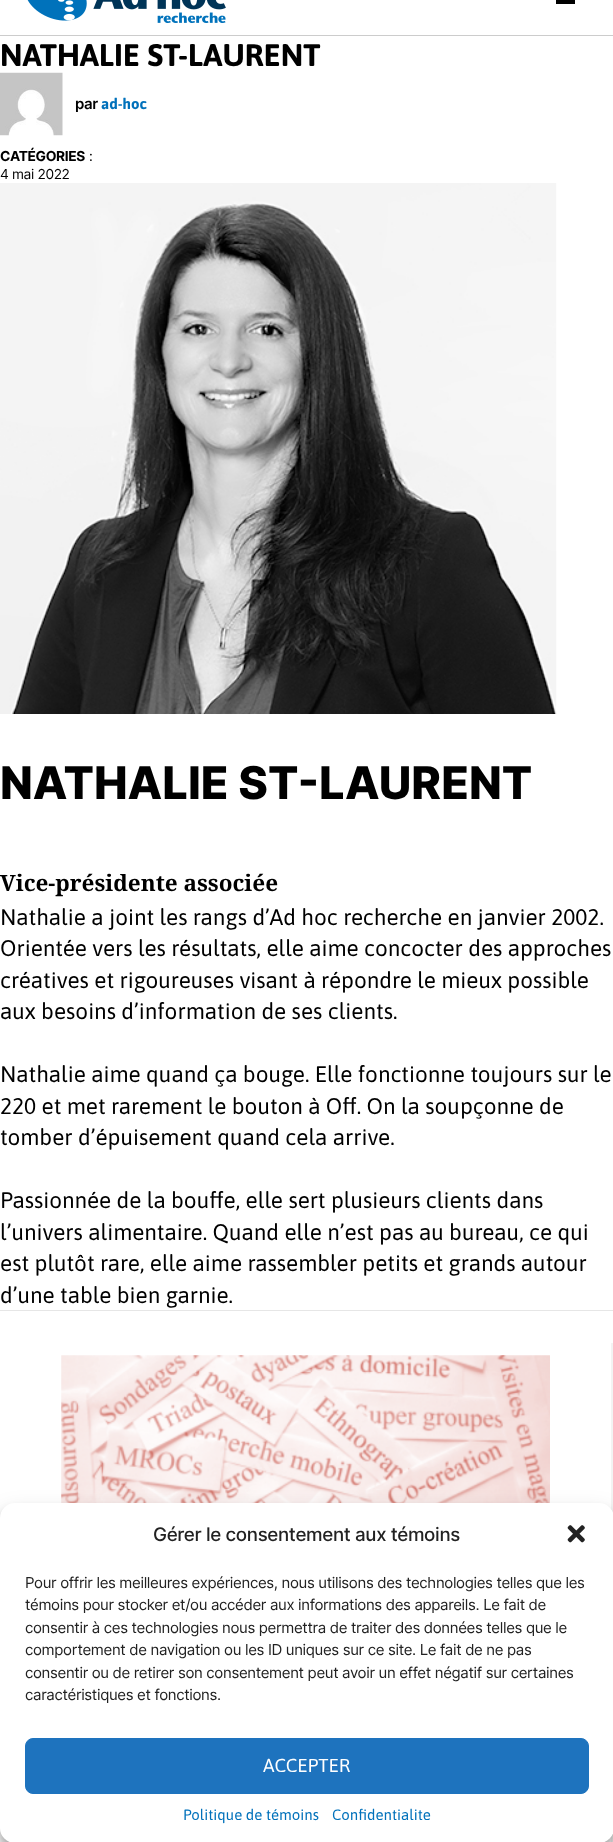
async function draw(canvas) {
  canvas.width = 613
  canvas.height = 1842
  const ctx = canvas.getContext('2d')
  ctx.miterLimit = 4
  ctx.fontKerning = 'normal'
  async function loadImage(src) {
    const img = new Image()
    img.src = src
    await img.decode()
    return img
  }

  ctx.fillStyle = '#fff'
  ctx.fillRect(0, 0, 613, 1842)
  ctx.fillStyle = '#ccc'
  ctx.fillRect(0, 35, 613, 1)
  ctx.drawImage(await loadImage('image0.png'), 27, 0, 199, 23)
  ctx.fillStyle = '#000'
  ctx.fillRect(556, 0, 19, 4)
  ctx.font = 'bold 31.25px Asap'
  ctx.fillText('NATHALIE ST-LAURENT', 0, 66)
  ctx.drawImage(await loadImage('image1.png'), 0, 72, 63, 64)
  ctx.letterSpacing = '-0.35px'
  ctx.font = '600 15px Inter'
  ctx.fillText('par', 75, 109)
  ctx.letterSpacing = '0px'
  ctx.font = 'bold 15px Asap'
  ctx.fillStyle = '#0071bb'
  ctx.fillText('ad-hoc', 101, 109)
  ctx.letterSpacing = '-0.35px'
  ctx.font = 'bold 13.75px Inter'
  ctx.fillStyle = '#000'
  ctx.fillText('CATÉGORIES', 0, 161)
  ctx.font = '13.75px Inter'
  ctx.fillText(':', 89, 161)
  ctx.fillText('4 mai 2022', 0, 179)
  ctx.drawImage(await loadImage('image2.png'), 0, 183, 557, 531)
  ctx.letterSpacing = '0px'
  ctx.font = '800 45px Inter'
  ctx.fillText('NATHALIE ST-LAURENT', 0, 799)
  ctx.font = 'bold 22.5px Noto Serif'
  ctx.fillText('Vice-présidente associée', 0, 891)
  ctx.font = '22.5px Asap'
  ctx.fillText('Nathalie a joint les rangs d’Ad hoc recherche en janvier 2002.', 0, 925)
  ctx.fillText('Orientée vers les résultats, elle aime concocter des approches', 0, 956)
  ctx.fillText('créatives et rigoureuses visant à répondre le mieux possible', 0, 988)
  ctx.fillText('aux besoins d’information de ses clients.', 0, 1019)
  ctx.fillText('Nathalie aime quand ça bouge. Elle fonctionne toujours sur le', 0, 1082)
  ctx.fillText('220 et met rarement le bouton à Off. On la soupçonne de', 0, 1114)
  ctx.fillText('tomber d’épuisement quand cela arrive.', 0, 1145)
  ctx.fillText('Passionnée de la bouffe, elle sert plusieurs clients dans', 0, 1208)
  ctx.fillText('l’univers alimentaire. Quand elle n’est pas au bureau, ce qui', 0, 1240)
  ctx.fillText('est plutôt rare, elle aime rassembler petits et grands autour', 0, 1271)
  ctx.fillText('d’une table bien garnie.', 0, 1303)
  ctx.fillStyle = '#e6e6e6'
  ctx.fillRect(0, 1310, 613, 1)
  ctx.fillStyle = '#f3f3f3'
  ctx.fillRect(611, 1343, 2, 170)
  ctx.drawImage(await loadImage('image3.png'), 61, 1355, 489, 148)
  ctx.fillRect(611, 1833, 2, 9)
  ctx.fillStyle = '#0000003b'
  ctx.filter = 'blur(4px)'
  ctx.beginPath()
  ctx.roundRect(0, 1510, 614, 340, 15)
  ctx.fill()
  ctx.filter = 'none'
  ctx.fillStyle = '#00000030'
  ctx.filter = 'blur(12.5px)'
  ctx.beginPath()
  ctx.roundRect(0, 1515, 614, 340, 15)
  ctx.fill()
  ctx.filter = 'none'
  ctx.fillStyle = '#fff'
  ctx.beginPath()
  ctx.roundRect(0, 1503, 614, 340, 15)
  ctx.fill()
  ctx.letterSpacing = '-0.35px'
  ctx.font = '500 18.75px Inter'
  ctx.fillStyle = '#222'
  ctx.fillText('Gérer le consentement aux témoins', 153, 1541)
  ctx.drawImage(await loadImage('image4.png'), 567, 1525, 18, 18)
  ctx.font = '15px Inter'
  ctx.fillText('Pour offrir les meilleures expériences, nous utilisons des technologies telles que les', 25, 1588)
  ctx.fillText('témoins pour stocker et/ou accéder aux informations des appareils. Le fait de', 25, 1610)
  ctx.fillText('consentir à ces technologies nous permettra de traiter des données telles que le', 25, 1633)
  ctx.fillText('comportement de navigation ou les ID uniques sur ce site. Le fait de ne pas', 25, 1655)
  ctx.fillText('consentir ou de retirer son consentement peut avoir un effet négatif sur certaines', 25, 1678)
  ctx.fillText('caractéristiques et fonctions.', 25, 1700)
  ctx.fillStyle = '#1e73be'
  ctx.beginPath()
  ctx.roundRect(25.5, 1738.5, 563, 55, 7.5)
  ctx.fill()
  ctx.strokeStyle = '#1e73be'
  ctx.stroke()
  ctx.letterSpacing = '0px'
  ctx.font = '18.75px Asap'
  ctx.fillStyle = '#fff'
  ctx.fillText('ACCEPTER', 263, 1772)
  ctx.font = '15px Asap'
  ctx.fillStyle = '#0071bb'
  ctx.fillText('Politique de témoins', 183, 1820)
  ctx.fillText('Confidentialite', 332, 1820)
}

draw(document.querySelector('canvas'))
